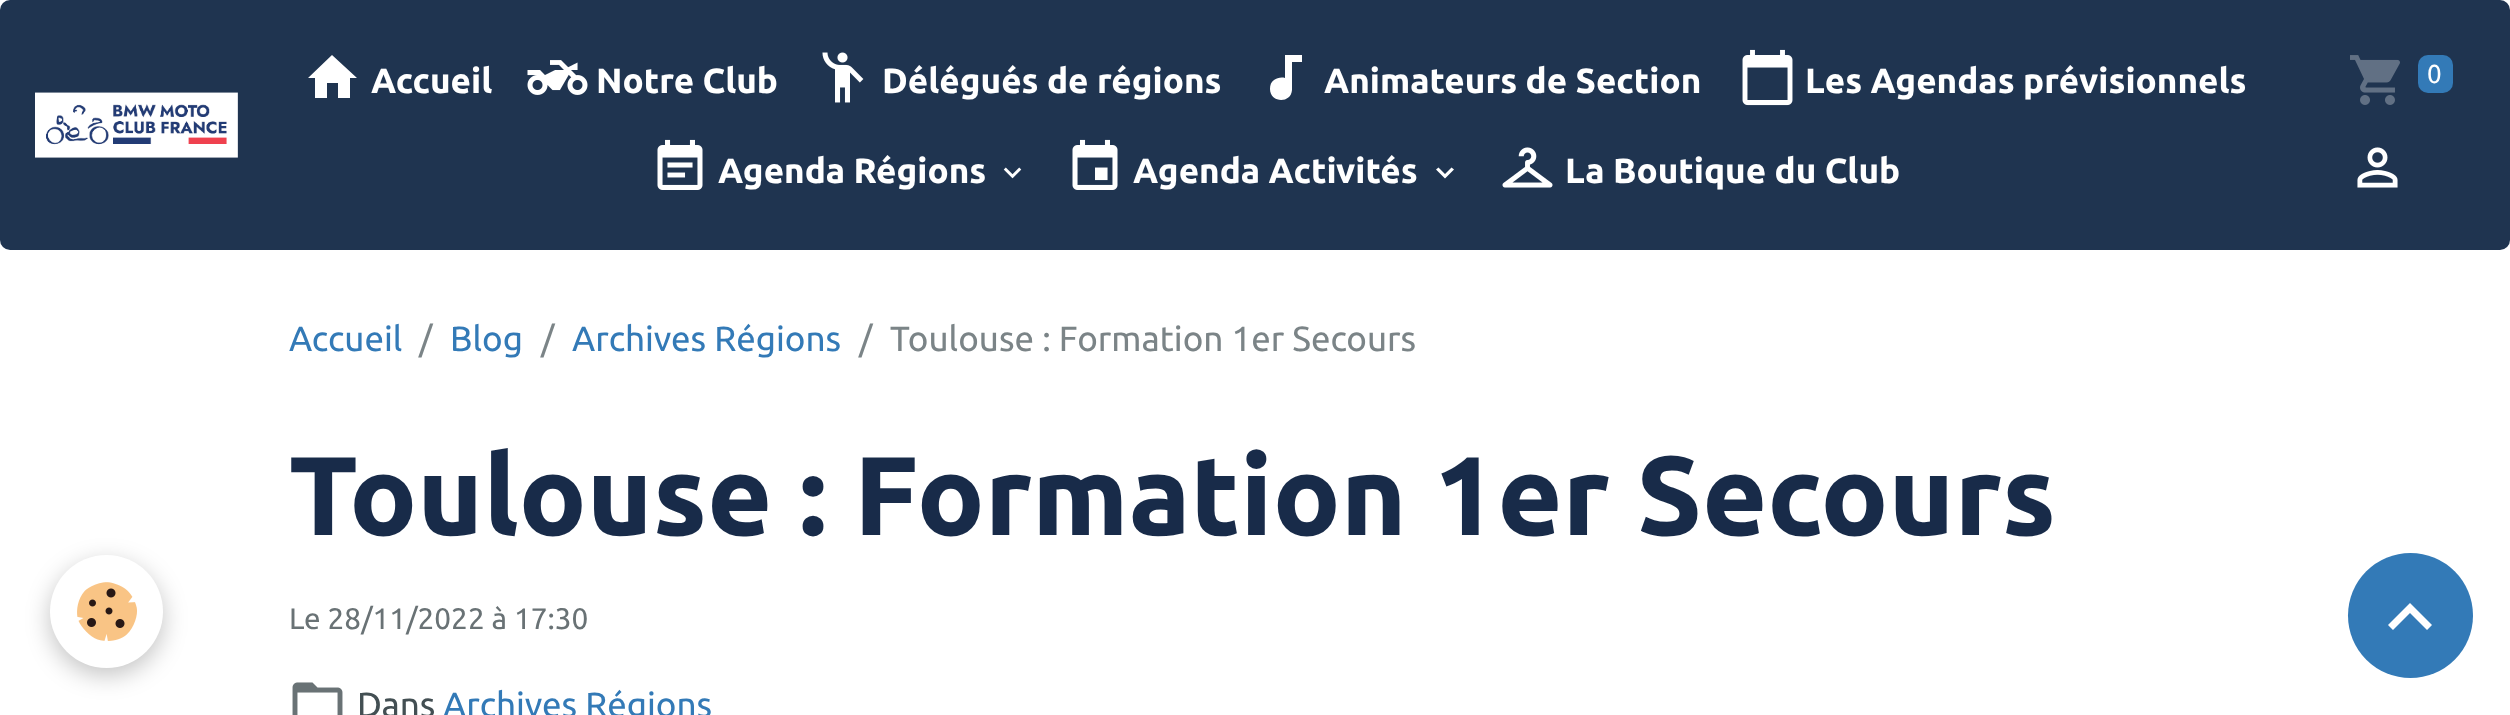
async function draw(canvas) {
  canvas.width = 2510
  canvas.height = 715
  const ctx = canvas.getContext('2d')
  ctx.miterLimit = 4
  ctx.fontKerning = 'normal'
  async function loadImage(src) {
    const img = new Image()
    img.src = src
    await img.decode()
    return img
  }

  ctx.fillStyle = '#fff'
  ctx.fillRect(0, 0, 2510, 715)
  ctx.fillStyle = '#1f3450'
  ctx.beginPath()
  ctx.roundRect(0, 0, 2510, 250, 10)
  ctx.fill()
  ctx.drawImage(await loadImage('image0.png'), 35, 92, 203, 66)
  ctx.fillStyle = '#fff'
  ctx.beginPath()
  ctx.moveTo(327, 98)
  ctx.lineTo(315, 98)
  ctx.lineTo(315, 78)
  ctx.lineTo(308, 78)
  ctx.lineTo(332, 55)
  ctx.lineTo(357, 78)
  ctx.lineTo(350, 78)
  ctx.lineTo(350, 98)
  ctx.lineTo(338, 98)
  ctx.lineTo(338, 83)
  ctx.lineTo(327, 83)
  ctx.closePath()
  ctx.fill()
  ctx.font = 'bold 35px Ubuntu'
  ctx.fillText('Accueil', 371, 93)
  ctx.drawImage(await loadImage('image1.png'), 527, 60, 61, 35)
  ctx.fillText('Notre Club', 596, 93)
  ctx.drawImage(await loadImage('image2.png'), 822, 52, 42, 51)
  ctx.fillText('Délégués de régions', 882, 93)
  ctx.beginPath()
  ctx.moveTo(1285, 55)
  ctx.lineTo(1302, 55)
  ctx.lineTo(1302, 62)
  ctx.lineTo(1292, 62)
  ctx.lineTo(1292, 90)
  ctx.bezierCurveTo(1291, 104, 1270, 103, 1270, 89)
  ctx.bezierCurveTo(1270, 85, 1271, 82, 1274, 80)
  ctx.bezierCurveTo(1277, 78, 1281, 77, 1285, 78)
  ctx.closePath()
  ctx.fill()
  ctx.fillText('Animateurs de Section', 1324, 93)
  ctx.drawImage(await loadImage('image3.png'), 1742, 49, 51, 57)
  ctx.fillText('Les Agendas prévisionnels', 1805, 93)
  ctx.drawImage(await loadImage('image4.png'), 657, 139, 46, 51)
  ctx.fillText('Agenda Régions', 718, 183)
  ctx.drawImage(await loadImage('image5.png'), 1003, 167, 19, 12)
  ctx.drawImage(await loadImage('image6.png'), 1072, 139, 46, 51)
  ctx.fillText('Agenda Activités', 1133, 183)
  ctx.beginPath()
  ctx.moveTo(1451.5, 167.5)
  ctx.lineTo(1454, 169.5)
  ctx.lineTo(1445, 178.5)
  ctx.lineTo(1436, 169.5)
  ctx.lineTo(1438.5, 167.5)
  ctx.lineTo(1445, 174)
  ctx.closePath()
  ctx.fill()
  ctx.drawImage(await loadImage('image7.png'), 1502, 147, 51, 41)
  ctx.fillText('La Boutique du Club', 1565, 183)
  ctx.drawImage(await loadImage('image8.png'), 2350, 55, 50, 50)
  ctx.fillStyle = '#337ab7'
  ctx.beginPath()
  ctx.roundRect(2418, 55, 35, 38, 10)
  ctx.fill()
  ctx.font = '26px Ubuntu'
  ctx.fillStyle = '#fff'
  ctx.fillText('0', 2427, 83)
  ctx.drawImage(await loadImage('image9.png'), 2357, 147, 41, 41)
  ctx.fillStyle = '#0000003d'
  ctx.filter = 'blur(12.5px)'
  ctx.beginPath()
  ctx.roundRect(50, 563, 113, 112, 56)
  ctx.fill()
  ctx.filter = 'none'
  ctx.fillStyle = '#fff'
  ctx.beginPath()
  ctx.arc(106.5, 611.5, 56.5, 0, 2 * Math.PI)
  ctx.fill()
  ctx.drawImage(await loadImage('image10.png'), 77, 582, 60, 59)
  ctx.font = '35px Ubuntu'
  ctx.fillStyle = '#337ab7'
  ctx.fillText('Accueil', 289, 351)
  ctx.fillStyle = '#7b8487'
  ctx.fillText('/', 419, 351)
  ctx.fillStyle = '#337ab7'
  ctx.fillText('Blog', 450, 351)
  ctx.fillStyle = '#7b8487'
  ctx.fillText('/', 541, 351)
  ctx.fillStyle = '#337ab7'
  ctx.fillText('Archives Régions', 572, 351)
  ctx.fillStyle = '#7b8487'
  ctx.fillText('/', 859, 351)
  ctx.fillText('Toulouse : Formation 1er Secours', 890, 351)
  ctx.font = 'bold 112px Ubuntu'
  ctx.fillStyle = '#182b49'
  ctx.fillText('Toulouse : Formation 1er Secours', 289, 535)
  ctx.font = '29.75px Ubuntu'
  ctx.fillStyle = '#697275'
  ctx.fillText('Le 28/11/2022 à 17:30', 289, 629)
  ctx.drawImage(await loadImage('image11.png'), 292, 682, 51, 33)
  ctx.font = '35px Ubuntu'
  ctx.fillStyle = '#434f53'
  ctx.fillText('Dans', 357, 717)
  ctx.fillStyle = '#337ab7'
  ctx.fillText('Archives Régions', 443, 717)
  ctx.beginPath()
  ctx.arc(2410.5, 615.5, 62.5, 0, 2 * Math.PI)
  ctx.fill()
  ctx.fillStyle = '#fff'
  ctx.beginPath()
  ctx.moveTo(2410, 603)
  ctx.lineTo(2432, 625)
  ctx.lineTo(2427, 630)
  ctx.lineTo(2410, 613)
  ctx.lineTo(2393, 630)
  ctx.lineTo(2388, 625)
  ctx.closePath()
  ctx.fill()
}

draw(document.querySelector('canvas'))
